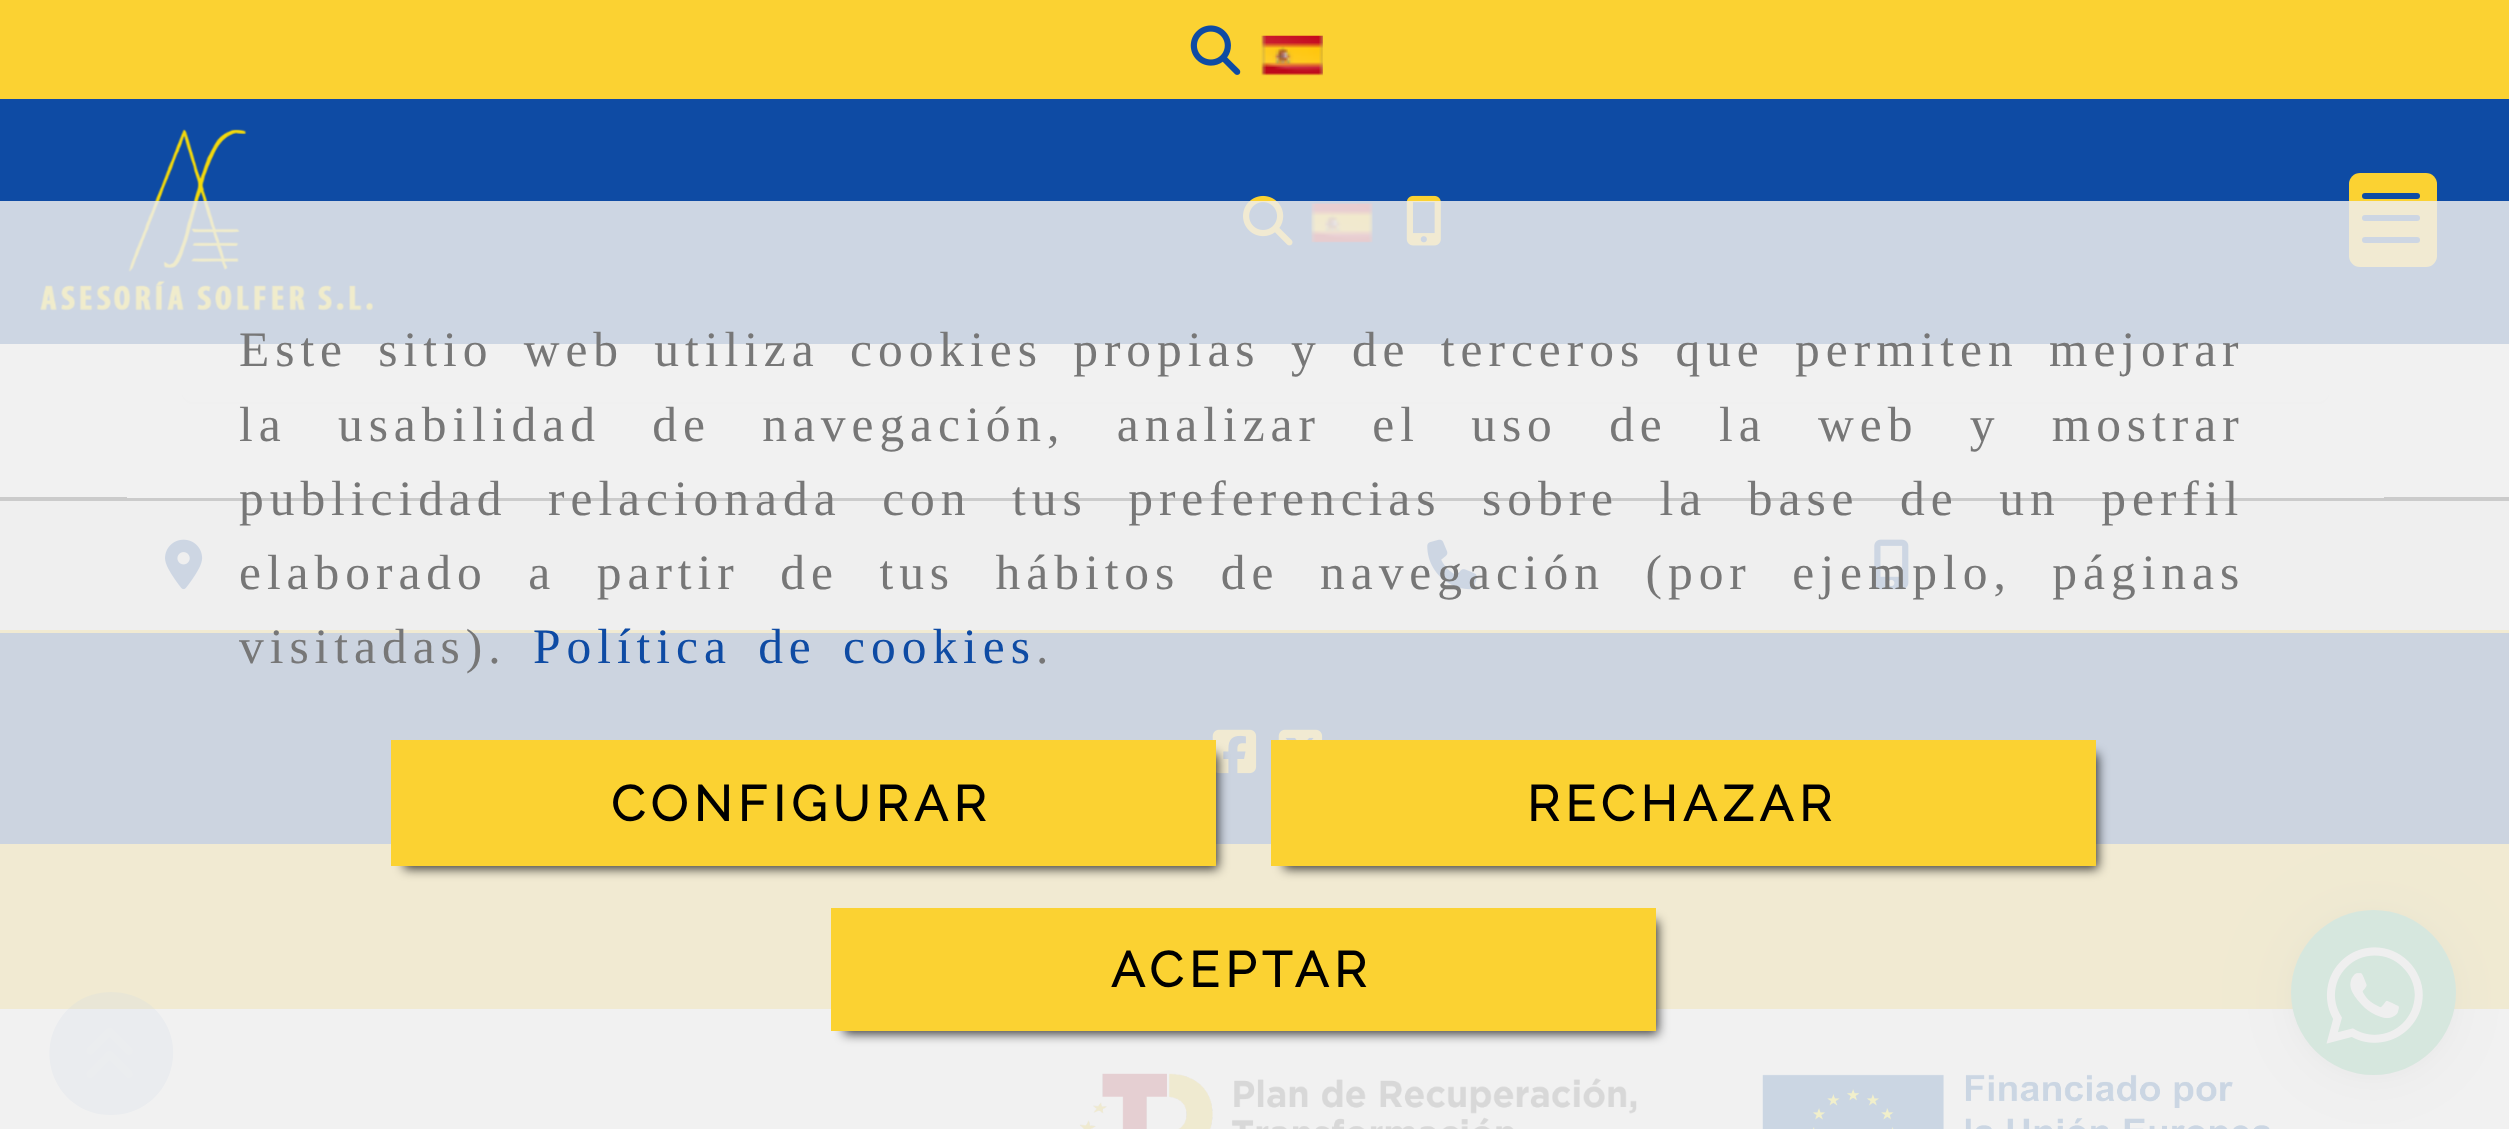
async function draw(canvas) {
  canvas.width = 2509
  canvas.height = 1129
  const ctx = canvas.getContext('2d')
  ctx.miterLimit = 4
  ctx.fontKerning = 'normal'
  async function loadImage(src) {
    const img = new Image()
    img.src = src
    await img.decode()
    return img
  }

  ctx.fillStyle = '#fff'
  ctx.fillRect(0, 0, 2509, 1129)
  ctx.save()
  ctx.beginPath()
  ctx.moveTo(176, 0)
  ctx.lineTo(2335, 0)
  ctx.lineTo(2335, 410)
  ctx.lineTo(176, 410)
  ctx.closePath()
  ctx.moveTo(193, -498)
  ctx.lineTo(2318, -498)
  ctx.bezierCurveTo(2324, -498, 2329, -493, 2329, -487)
  ctx.lineTo(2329, 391)
  ctx.bezierCurveTo(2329, 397, 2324, 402, 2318, 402)
  ctx.lineTo(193, 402)
  ctx.bezierCurveTo(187, 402, 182, 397, 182, 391)
  ctx.lineTo(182, -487)
  ctx.bezierCurveTo(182, -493, 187, -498, 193, -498)
  ctx.closePath()
  ctx.clip('evenodd')
  ctx.fillStyle = '#0000000d'
  ctx.filter = 'blur(1.5px)'
  ctx.beginPath()
  ctx.roundRect(182, -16, 2147, 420, 11)
  ctx.fill()
  ctx.filter = 'none'
  ctx.restore()
  ctx.fillStyle = '#fbd232'
  ctx.fillRect(0, 0, 2509, 99)
  ctx.drawImage(await loadImage('image0.png'), 1190, 25, 51, 50)
  ctx.drawImage(await loadImage('image1.png'), 1261, 35, 62, 41)
  ctx.fillStyle = '#0e4ba4'
  ctx.fillRect(0, 99, 2509, 245)
  ctx.drawImage(await loadImage('image2.png'), 40, 129, 334, 182)
  ctx.drawImage(await loadImage('image3.png'), 1243, 195, 50, 51)
  ctx.drawImage(await loadImage('image4.png'), 1311, 202, 62, 41)
  ctx.drawImage(await loadImage('image5.png'), 1406, 195, 35, 51)
  ctx.fillStyle = '#fbd232'
  ctx.beginPath()
  ctx.roundRect(2349, 173, 88, 94, 11)
  ctx.fill()
  ctx.fillStyle = '#0e4ba4'
  ctx.beginPath()
  ctx.roundRect(2362, 215, 58, 6, 3)
  ctx.fill()
  ctx.beginPath()
  ctx.roundRect(2362, 193, 58, 6, 3)
  ctx.fill()
  ctx.beginPath()
  ctx.roundRect(2362, 237, 58, 6, 3)
  ctx.fill()
  ctx.fillStyle = '#000'
  ctx.fillRect(0, 497, 2509, 4)
  ctx.fillStyle = '#fff'
  ctx.fillRect(127, 497, 2257, 1)
  ctx.fillStyle = '#eee'
  ctx.fillRect(0, 501, 2509, 129)
  ctx.drawImage(await loadImage('image6.png'), 165, 539, 38, 51)
  ctx.drawImage(await loadImage('image7.png'), 1427, 539, 50, 51)
  ctx.drawImage(await loadImage('image8.png'), 1874, 539, 35, 51)
  ctx.fillStyle = '#fbd232'
  ctx.fillRect(0, 630, 2509, 379)
  ctx.fillStyle = '#0c408d'
  ctx.fillRect(0, 633, 2509, 211)
  ctx.drawImage(await loadImage('image9.png'), 1212, 729, 45, 45)
  ctx.drawImage(await loadImage('image10.png'), 1278, 729, 45, 11)
  ctx.drawImage(await loadImage('image14.png'), 1762, 1074, 508, 55)
  ctx.fillStyle = '#00000033'
  ctx.filter = 'blur(44px)'
  ctx.beginPath()
  ctx.roundRect(2291, 916, 165, 165, 82.5)
  ctx.fill()
  ctx.filter = 'none'
  ctx.fillStyle = '#0000001a'
  ctx.filter = 'blur(8px)'
  ctx.beginPath()
  ctx.roundRect(2291, 913, 165, 165, 82.5)
  ctx.fill()
  ctx.filter = 'none'
  ctx.fillStyle = '#4eb980'
  ctx.beginPath()
  ctx.arc(2373.5, 992.5, 82.5, 0, 2 * Math.PI)
  ctx.fill()
  ctx.drawImage(await loadImage('image11.png'), 2326, 947, 97, 97)
  ctx.fillStyle = '#0e4ba433'
  ctx.beginPath()
  ctx.moveTo(111, 1115)
  ctx.bezierCurveTo(170, 1115, 196, 1041, 149, 1004)
  ctx.bezierCurveTo(138, 996, 125, 992, 111, 992)
  ctx.bezierCurveTo(98, 992, 84, 996, 74, 1004)
  ctx.bezierCurveTo(27, 1041, 52, 1115, 111, 1115)
  ctx.closePath()
  ctx.fill()
  ctx.drawImage(await loadImage('image12.png'), 86, 1028, 47, 50)
  ctx.drawImage(await loadImage('image13.png'), 1079, 1073, 558, 56)
  ctx.fillStyle = '#eeeeeed9'
  ctx.fillRect(0, 201, 2509, 928)
  ctx.letterSpacing = '5.95px'
  ctx.wordSpacing = '12px'
  ctx.font = '49.5px Liberation Serif'
  ctx.fillStyle = '#777'
  ctx.fillText('Este sitio web utiliza cookies propias y de terceros que permiten mejorar', 239, 366)
  ctx.wordSpacing = '33px'
  ctx.fillText('la usabilidad de navegación, analizar el uso de la web y mostrar', 239, 441)
  ctx.wordSpacing = '22.25px'
  ctx.fillText('publicidad relacionada con tus preferencias sobre la base de un perfil', 239, 515)
  ctx.fillText('elaborado a partir de tus hábitos de navegación (por ejemplo, páginas', 239, 589)
  ctx.wordSpacing = '0px'
  ctx.fillText('visitadas).', 239, 663)
  ctx.wordSpacing = '8px'
  ctx.fillStyle = '#0e4ba4'
  ctx.fillText('Política de cookies', 533, 663)
  ctx.wordSpacing = '0px'
  ctx.fillStyle = '#777'
  ctx.fillText('.', 1036, 663)
  ctx.fillStyle = '#000000bf'
  ctx.filter = 'blur(5.5px)'
  ctx.beginPath()
  ctx.rect(404, 754, 814, 115)
  ctx.fill()
  ctx.filter = 'none'
  ctx.fillStyle = '#fbd232'
  ctx.fillRect(391, 740, 825, 126)
  ctx.font = 'bold 49.5px Raleway'
  ctx.fillStyle = '#000'
  ctx.fillText('CONFIGURAR', 611, 821)
  ctx.fillStyle = '#000000bf'
  ctx.filter = 'blur(5.5px)'
  ctx.beginPath()
  ctx.rect(1284, 754, 814, 115)
  ctx.fill()
  ctx.filter = 'none'
  ctx.fillStyle = '#fbd232'
  ctx.fillRect(1271, 740, 825, 126)
  ctx.fillStyle = '#000'
  ctx.fillText('RECHAZAR', 1527, 821)
  ctx.fillStyle = '#000000bf'
  ctx.filter = 'blur(5.5px)'
  ctx.beginPath()
  ctx.rect(844, 921, 814, 113)
  ctx.fill()
  ctx.filter = 'none'
  ctx.fillStyle = '#fbd232'
  ctx.fillRect(831, 908, 825, 123)
  ctx.fillStyle = '#000'
  ctx.fillText('ACEPTAR', 1111, 987)
}

draw(document.querySelector('canvas'))
